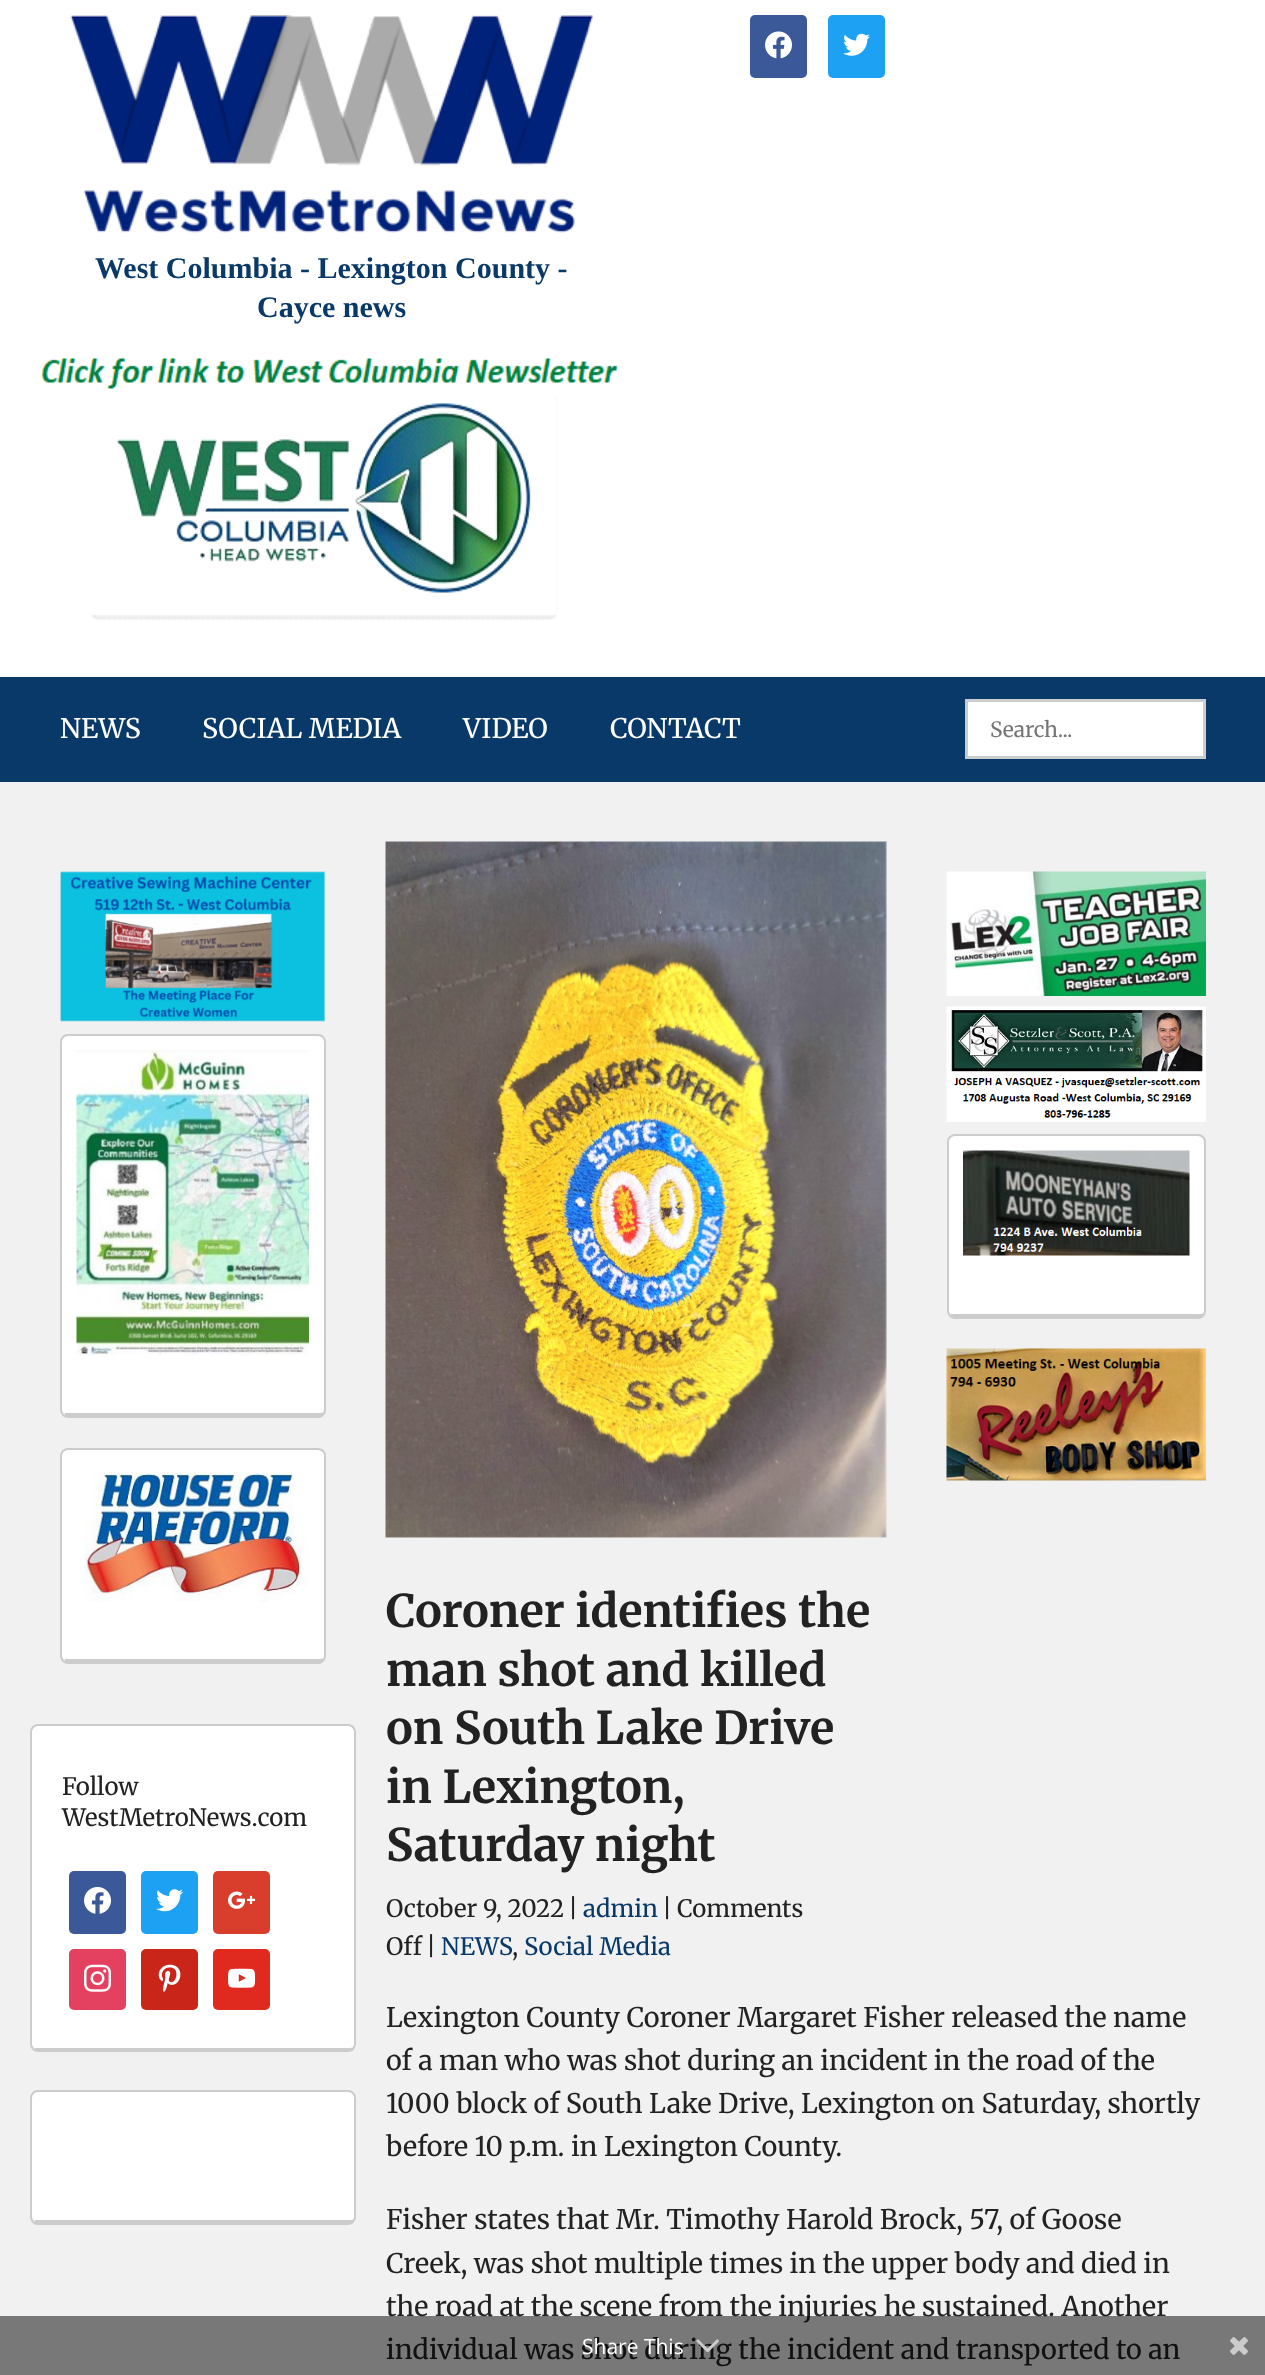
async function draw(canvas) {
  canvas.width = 1265
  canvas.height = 2375
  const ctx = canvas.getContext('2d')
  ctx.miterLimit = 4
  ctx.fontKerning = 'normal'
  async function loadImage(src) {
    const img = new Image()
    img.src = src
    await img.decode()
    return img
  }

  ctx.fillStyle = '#fff'
  ctx.fillRect(0, 0, 1265, 2375)
  ctx.fillStyle = '#3b5998'
  ctx.beginPath()
  ctx.roundRect(750, 15, 57, 63, 5)
  ctx.fill()
  ctx.drawImage(await loadImage('image0.png'), 765, 31, 27, 28)
  ctx.fillStyle = '#1da1f2'
  ctx.beginPath()
  ctx.roundRect(828, 15, 57, 63, 5)
  ctx.fill()
  ctx.drawImage(await loadImage('image1.png'), 843, 33, 27, 23)
  ctx.drawImage(await loadImage('image2.png'), 70, 15, 523, 218)
  ctx.font = 'bold 30px Liberation Serif'
  ctx.fillStyle = '#093969'
  ctx.fillText('West Columbia - Lexington County -', 95, 278)
  ctx.fillText('Cayce news', 257, 317)
  ctx.drawImage(await loadImage('image3.png'), 40, 358, 579, 262)
  ctx.fillRect(0, 677, 1265, 105)
  ctx.font = '27px Merriweather'
  ctx.fillStyle = '#fff'
  ctx.fillText('NEWS', 60, 738)
  ctx.fillText('SOCIAL MEDIA', 202, 738)
  ctx.fillText('VIDEO', 463, 738)
  ctx.fillText('CONTACT', 610, 738)
  ctx.beginPath()
  ctx.rect(966.5, 700.5, 238, 57)
  ctx.fill()
  ctx.strokeStyle = '#ccc'
  ctx.lineWidth = 3
  ctx.stroke()
  ctx.font = '21px Merriweather'
  ctx.fillStyle = '#757575'
  ctx.fillText('Search...', 990, 737)
  ctx.fillStyle = '#f1f1f1'
  ctx.fillRect(0, 782, 1265, 1593)
  ctx.drawImage(await loadImage('image4.png'), 60, 871, 266, 151)
  ctx.fillStyle = '#fff'
  ctx.beginPath()
  ctx.moveTo(68, 1035)
  ctx.lineTo(318, 1035)
  ctx.bezierCurveTo(321, 1035, 324, 1038, 324, 1041)
  ctx.lineTo(324, 1410)
  ctx.bezierCurveTo(324, 1412, 321, 1413, 318, 1413)
  ctx.lineTo(68, 1413)
  ctx.bezierCurveTo(64, 1413, 62, 1412, 62, 1410)
  ctx.lineTo(62, 1041)
  ctx.bezierCurveTo(62, 1038, 64, 1035, 68, 1035)
  ctx.closePath()
  ctx.fill()
  ctx.beginPath()
  ctx.roundRect(61, 1035, 264, 382, 7)
  ctx.lineWidth = 2
  ctx.stroke()
  ctx.fillStyle = '#ccc'
  ctx.fillRect(65, 1413, 258, 3)
  ctx.drawImage(await loadImage('image5.png'), 76, 1050, 233, 306)
  ctx.fillStyle = '#fff'
  ctx.beginPath()
  ctx.moveTo(68, 1449)
  ctx.lineTo(318, 1449)
  ctx.bezierCurveTo(321, 1449, 324, 1452, 324, 1455)
  ctx.lineTo(324, 1656)
  ctx.bezierCurveTo(324, 1658, 321, 1659, 318, 1659)
  ctx.lineTo(68, 1659)
  ctx.bezierCurveTo(64, 1659, 62, 1658, 62, 1656)
  ctx.lineTo(62, 1455)
  ctx.bezierCurveTo(62, 1452, 64, 1449, 68, 1449)
  ctx.closePath()
  ctx.fill()
  ctx.beginPath()
  ctx.roundRect(61, 1449, 264, 214, 7)
  ctx.stroke()
  ctx.fillStyle = '#ccc'
  ctx.fillRect(65, 1659, 258, 3)
  ctx.drawImage(await loadImage('image6.png'), 84, 1472, 225, 130)
  ctx.fillStyle = '#fff'
  ctx.beginPath()
  ctx.moveTo(38, 1725)
  ctx.lineTo(348, 1725)
  ctx.bezierCurveTo(351, 1725, 354, 1728, 354, 1731)
  ctx.lineTo(354, 2044)
  ctx.bezierCurveTo(354, 2046, 351, 2048, 348, 2048)
  ctx.lineTo(38, 2048)
  ctx.bezierCurveTo(34, 2048, 32, 2046, 32, 2044)
  ctx.lineTo(32, 1731)
  ctx.bezierCurveTo(32, 1728, 34, 1725, 38, 1725)
  ctx.closePath()
  ctx.fill()
  ctx.beginPath()
  ctx.roundRect(31, 1725, 324, 326, 7)
  ctx.stroke()
  ctx.fillStyle = '#ccc'
  ctx.fillRect(35, 2048, 318, 3)
  ctx.font = '24px Merriweather'
  ctx.fillStyle = '#222'
  ctx.fillText('Follow', 62, 1795)
  ctx.fillText('WestMetroNews.com', 62, 1826)
  ctx.fillStyle = '#3b5998'
  ctx.beginPath()
  ctx.roundRect(69, 1871, 57, 63, 5)
  ctx.fill()
  ctx.drawImage(await loadImage('image7.png'), 84, 1886, 27, 28)
  ctx.fillStyle = '#1da1f2'
  ctx.beginPath()
  ctx.roundRect(141, 1871, 57, 63, 5)
  ctx.fill()
  ctx.drawImage(await loadImage('image8.png'), 156, 1889, 27, 23)
  ctx.fillStyle = '#d93e2d'
  ctx.beginPath()
  ctx.roundRect(213, 1871, 57, 63, 5)
  ctx.fill()
  ctx.drawImage(await loadImage('image9.png'), 228, 1891, 28, 18)
  ctx.fillStyle = '#e4405f'
  ctx.beginPath()
  ctx.roundRect(69, 1949, 57, 61, 5)
  ctx.fill()
  ctx.drawImage(await loadImage('image10.png'), 84, 1964, 28, 28)
  ctx.fillStyle = '#c92619'
  ctx.beginPath()
  ctx.roundRect(141, 1949, 57, 61, 5)
  ctx.fill()
  ctx.drawImage(await loadImage('image11.png'), 158, 1964, 23, 28)
  ctx.fillStyle = '#e02a20'
  ctx.beginPath()
  ctx.roundRect(213, 1949, 57, 61, 5)
  ctx.fill()
  ctx.drawImage(await loadImage('image12.png'), 228, 1968, 28, 20)
  ctx.fillStyle = '#fff'
  ctx.beginPath()
  ctx.moveTo(38, 2091)
  ctx.lineTo(348, 2091)
  ctx.bezierCurveTo(351, 2091, 354, 2094, 354, 2097)
  ctx.lineTo(354, 2217)
  ctx.bezierCurveTo(354, 2219, 351, 2220, 348, 2220)
  ctx.lineTo(38, 2220)
  ctx.bezierCurveTo(34, 2220, 32, 2219, 32, 2217)
  ctx.lineTo(32, 2097)
  ctx.bezierCurveTo(32, 2094, 34, 2091, 38, 2091)
  ctx.closePath()
  ctx.fill()
  ctx.beginPath()
  ctx.roundRect(31, 2091, 324, 133, 7)
  ctx.stroke()
  ctx.fillStyle = '#ccc'
  ctx.fillRect(35, 2220, 318, 3)
  ctx.drawImage(await loadImage('image13.png'), 946, 871, 260, 125)
  ctx.drawImage(await loadImage('image14.png'), 946, 1006, 260, 116)
  ctx.fillStyle = '#fff'
  ctx.beginPath()
  ctx.moveTo(954, 1136)
  ctx.lineTo(1198, 1136)
  ctx.bezierCurveTo(1202, 1136, 1204, 1138, 1204, 1142)
  ctx.lineTo(1204, 1311)
  ctx.bezierCurveTo(1204, 1313, 1202, 1314, 1198, 1314)
  ctx.lineTo(954, 1314)
  ctx.bezierCurveTo(951, 1314, 948, 1313, 948, 1311)
  ctx.lineTo(948, 1142)
  ctx.bezierCurveTo(948, 1138, 951, 1136, 954, 1136)
  ctx.closePath()
  ctx.fill()
  ctx.beginPath()
  ctx.roundRect(948, 1135, 257, 183, 7)
  ctx.stroke()
  ctx.fillStyle = '#ccc'
  ctx.fillRect(951, 1314, 252, 3)
  ctx.drawImage(await loadImage('image15.png'), 963, 1150, 227, 106)
  ctx.drawImage(await loadImage('image16.png'), 946, 1348, 260, 133)
  ctx.drawImage(await loadImage('image17.png'), 385, 841, 502, 697)
  ctx.font = 'bold 45px Merriweather'
  ctx.fillStyle = '#222'
  ctx.fillText('Coroner identifies the', 386, 1627)
  ctx.fillText('man shot and killed', 386, 1686)
  ctx.fillText('on South Lake Drive', 386, 1744)
  ctx.fillText('in Lexington,', 386, 1803)
  ctx.fillText('Saturday night', 386, 1861)
  ctx.font = '24px Merriweather'
  ctx.fillText('October 9, 2022', 386, 1917)
  ctx.fillText('|', 568, 1917)
  ctx.fillStyle = '#093969'
  ctx.fillText('admin', 583, 1917)
  ctx.fillStyle = '#222'
  ctx.fillText('|', 662, 1917)
  ctx.fillText('Comments', 677, 1917)
  ctx.fillText('Off', 386, 1955)
  ctx.fillText('|', 426, 1955)
  ctx.fillStyle = '#093969'
  ctx.fillText('NEWS', 441, 1955)
  ctx.fillStyle = '#222'
  ctx.fillText(',', 512, 1955)
  ctx.fillStyle = '#093969'
  ctx.fillText('Social Media', 524, 1955)
  ctx.font = '27px Merriweather'
  ctx.fillStyle = '#222'
  ctx.fillText('Lexington County Coroner Margaret Fisher released the name', 386, 2027)
  ctx.fillText('of a man who was shot during an incident in the road of the', 386, 2070)
  ctx.fillText('1000 block of South Lake Drive, Lexington on Saturday, shortly', 386, 2113)
  ctx.fillText('before 10 p.m. in Lexington County.', 386, 2156)
  ctx.fillText('Fisher states that Mr. Timothy Harold Brock, 57, of Goose', 386, 2229)
  ctx.fillText('Creek, was shot multiple times in the upper body and died in', 386, 2273)
  ctx.fillText('the road at the scene from the injuries he sustained. Another', 386, 2316)
  ctx.fillText('individual was shot during the incident and transported to an', 386, 2359)
  ctx.fillStyle = '#00000080'
  ctx.fillRect(0, 2316, 1265, 59)
  ctx.font = '21px Open Sans'
  ctx.fillStyle = '#fff'
  ctx.fillText('Share This', 582, 2354)
  ctx.drawImage(await loadImage('image18.png'), 696, 2339, 23, 14)
  ctx.drawImage(await loadImage('image19.png'), 1230, 2337, 18, 18)
}

draw(document.querySelector('canvas'))
